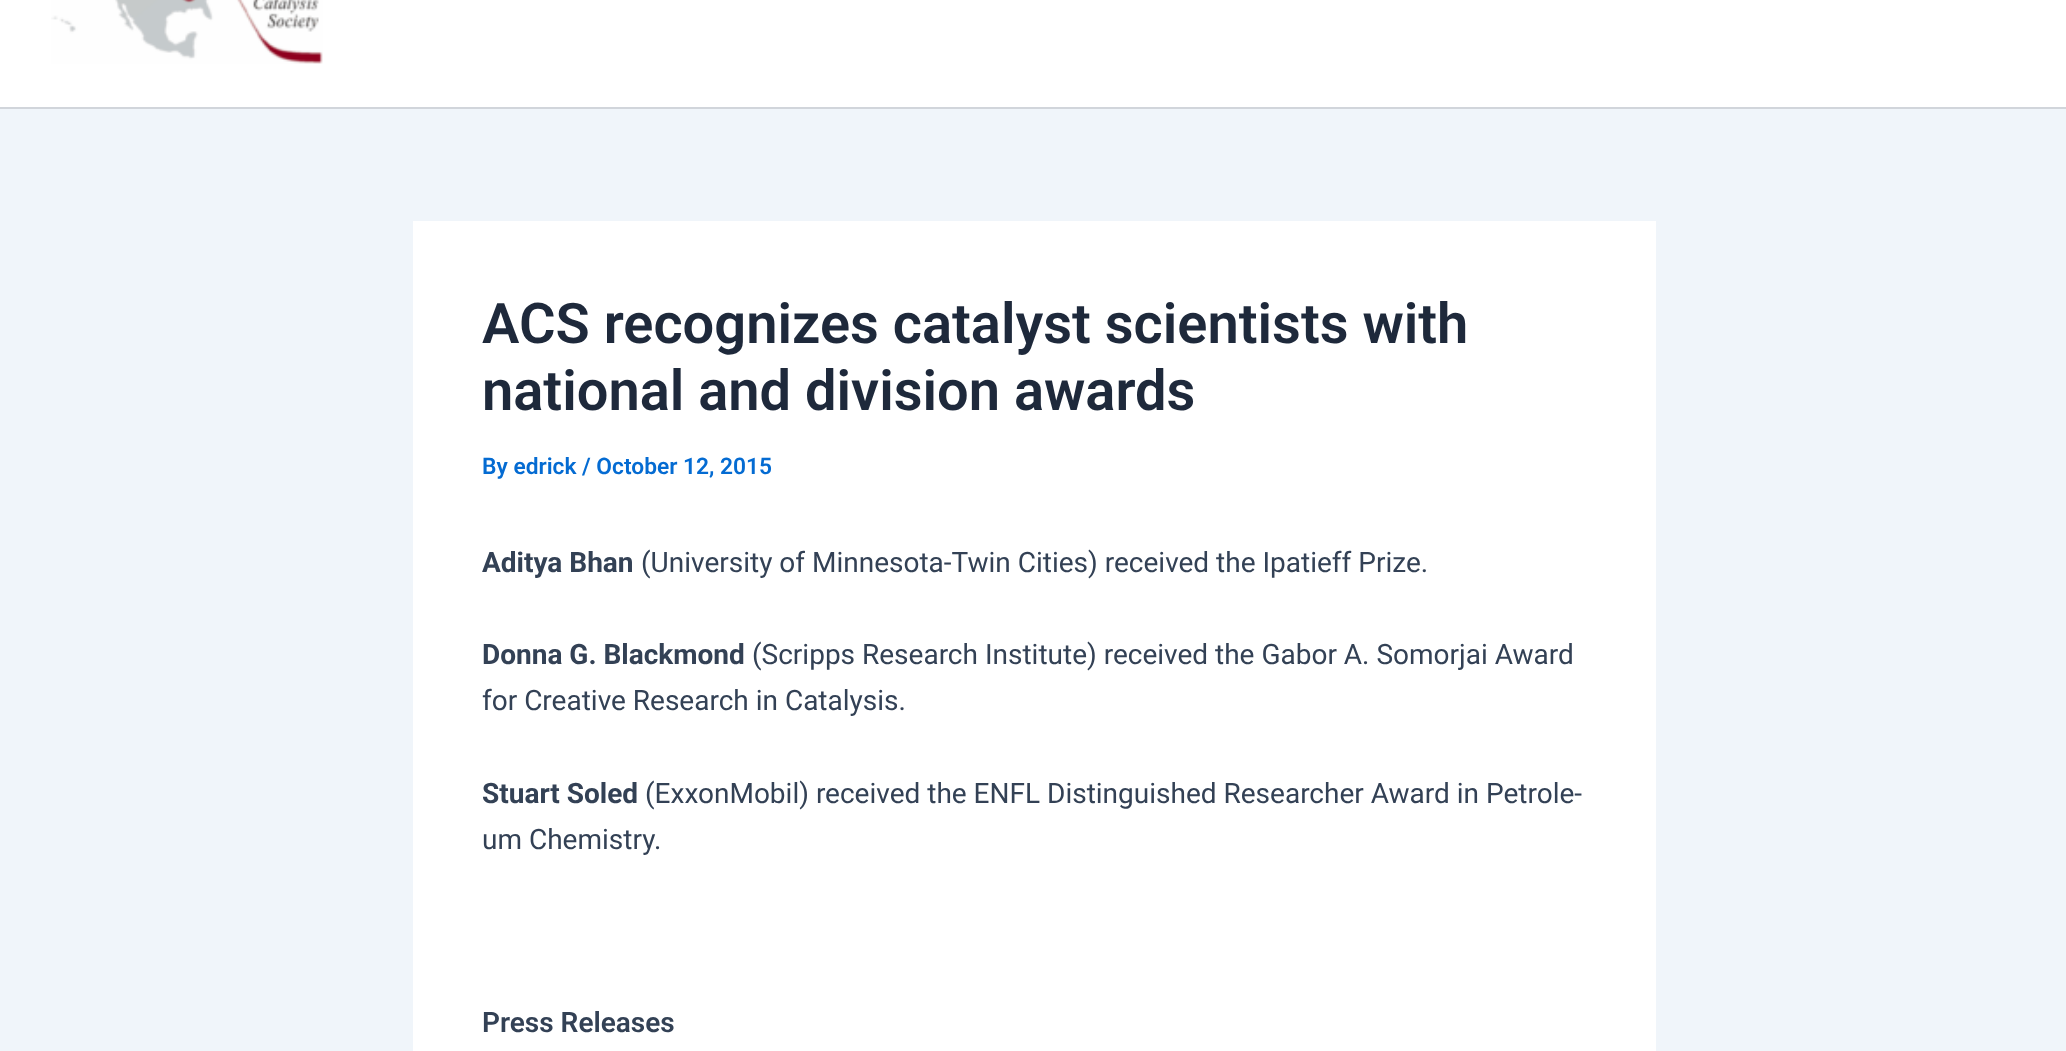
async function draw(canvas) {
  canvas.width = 2066
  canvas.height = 1051
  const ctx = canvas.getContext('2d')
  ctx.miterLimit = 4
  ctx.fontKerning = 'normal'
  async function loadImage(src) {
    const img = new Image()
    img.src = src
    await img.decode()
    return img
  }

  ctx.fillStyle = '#f0f5fa'
  ctx.fillRect(0, 0, 2066, 1051)
  ctx.fillStyle = '#fff'
  ctx.fillRect(0, 0, 2066, 107)
  ctx.fillStyle = '#d1d5db'
  ctx.fillRect(0, 107, 2066, 2)
  ctx.drawImage(await loadImage('image0.png'), 51, 0, 272, 64)
  ctx.fillStyle = '#fff'
  ctx.fillRect(413, 221, 1243, 830)
  ctx.font = '600 56px Roboto'
  ctx.fillStyle = '#1e293b'
  ctx.fillText('ACS recognizes catalyst scientists with', 482, 343)
  ctx.fillText('national and division awards', 482, 410)
  ctx.font = '600 22.75px Roboto'
  ctx.fillStyle = '#046bd2'
  ctx.fillText('By edrick / October 12, 2015', 482, 474)
  ctx.font = 'bold 28px Roboto'
  ctx.fillStyle = '#334155'
  ctx.fillText('Aditya Bhan', 482, 572)
  ctx.font = '28px Roboto'
  ctx.fillText('(University of Minnesota-Twin Cities) received the Ipatieff Prize.', 641, 572)
  ctx.font = 'bold 28px Roboto'
  ctx.fillText('Donna G. Blackmond', 482, 664)
  ctx.font = '28px Roboto'
  ctx.fillText('(Scripps Research Institute) received the Gabor A. Somorjai Award', 752, 664)
  ctx.fillText('for Creative Research in Catalysis.', 482, 710)
  ctx.font = 'bold 28px Roboto'
  ctx.fillText('Stuart Soled', 482, 803)
  ctx.font = '28px Roboto'
  ctx.fillText('(ExxonMobil) received the ENFL Distinguished Researcher Award in Petrole-', 645, 803)
  ctx.fillText('um Chemistry.', 482, 849)
  ctx.font = '600 28px Roboto'
  ctx.fillText('Press Releases', 482, 1032)
}

draw(document.querySelector('canvas'))
